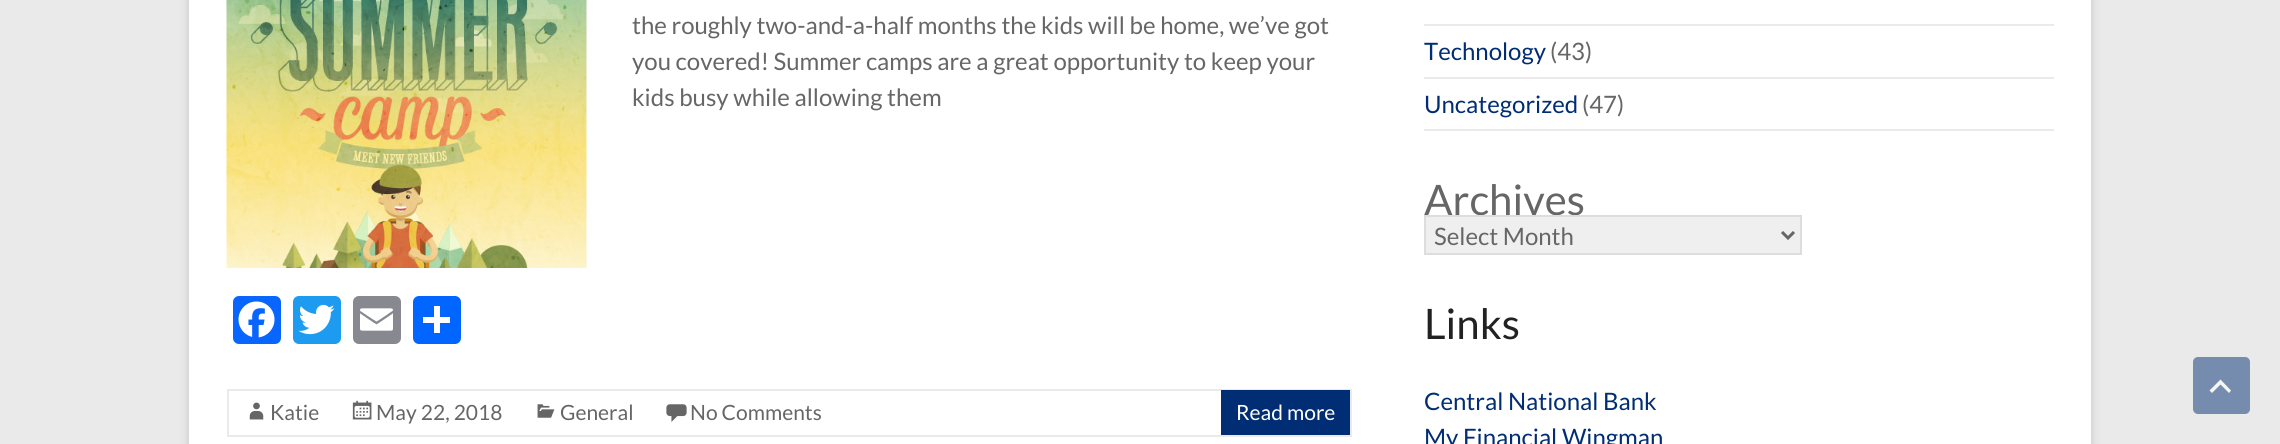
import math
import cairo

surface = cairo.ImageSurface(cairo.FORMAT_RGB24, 2280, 444)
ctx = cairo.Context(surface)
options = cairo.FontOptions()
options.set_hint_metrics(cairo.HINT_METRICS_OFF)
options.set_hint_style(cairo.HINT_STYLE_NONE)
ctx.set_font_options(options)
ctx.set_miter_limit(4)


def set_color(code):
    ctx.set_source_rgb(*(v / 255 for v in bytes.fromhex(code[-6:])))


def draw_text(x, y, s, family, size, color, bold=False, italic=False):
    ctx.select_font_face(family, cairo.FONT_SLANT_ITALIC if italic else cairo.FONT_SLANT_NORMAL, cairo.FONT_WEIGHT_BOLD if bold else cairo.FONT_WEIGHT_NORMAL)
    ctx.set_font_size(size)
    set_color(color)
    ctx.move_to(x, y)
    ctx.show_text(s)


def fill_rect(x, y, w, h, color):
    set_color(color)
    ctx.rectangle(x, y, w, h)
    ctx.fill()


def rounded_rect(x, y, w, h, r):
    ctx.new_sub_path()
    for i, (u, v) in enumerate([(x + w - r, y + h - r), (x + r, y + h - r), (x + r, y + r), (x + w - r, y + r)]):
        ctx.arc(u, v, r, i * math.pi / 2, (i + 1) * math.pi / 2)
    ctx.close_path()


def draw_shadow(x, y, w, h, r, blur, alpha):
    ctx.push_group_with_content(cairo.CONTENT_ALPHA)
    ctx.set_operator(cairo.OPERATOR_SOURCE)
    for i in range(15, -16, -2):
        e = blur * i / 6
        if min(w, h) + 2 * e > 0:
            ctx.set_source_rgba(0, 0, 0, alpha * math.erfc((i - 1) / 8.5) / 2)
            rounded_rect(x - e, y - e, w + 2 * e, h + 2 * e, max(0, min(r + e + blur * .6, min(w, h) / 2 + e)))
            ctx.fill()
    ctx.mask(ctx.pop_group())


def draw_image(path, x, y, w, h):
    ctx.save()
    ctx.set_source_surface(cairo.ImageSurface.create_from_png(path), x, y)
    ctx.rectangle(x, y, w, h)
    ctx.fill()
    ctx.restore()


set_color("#eaeaea")
ctx.paint()
set_color("#646464")
draw_shadow(189, -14, 1902, 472, 0, 4.5, 0.3)
fill_rect(189, 0, 1902, 444, "#ffffff")
draw_image("assets/img1.png", 226, 0, 361, 268)
draw_text(632, 34, "the roughly two-and-a-half months the kids will be home, we’ve got", "Lato", 24, "#666666")
draw_text(632, 70, "you covered! Summer camps are a great opportunity to keep your", "Lato", 24, "#666666")
draw_text(632, 106, "kids busy while allowing them", "Lato", 24, "#666666")
set_color("#0866ff")
rounded_rect(233, 296, 48, 48, 6)
ctx.fill()
draw_image("assets/img2.png", 238, 301, 37, 37)
set_color("#1d9bf0")
rounded_rect(293, 296, 48, 48, 6)
ctx.fill()
draw_image("assets/img3.png", 298, 304, 37, 31)
set_color("#888990")
rounded_rect(353, 296, 48, 48, 6)
ctx.fill()
draw_image("assets/img4.png", 360, 308, 33, 23)
set_color("#0166ff")
rounded_rect(413, 296, 48, 48, 6)
ctx.fill()
fill_rect(434, 306, 6, 27, "#ffffff")
fill_rect(423, 317, 27, 6, "#ffffff")
ctx.rectangle(228, 390, 1123, 46)
set_color("#eaeaea")
ctx.stroke()
draw_image("assets/img5.png", 249, 402, 15, 18)
draw_text(270, 420, "Katie", "Lato", 21, "#666666")
draw_image("assets/img6.png", 352, 400, 20, 20)
draw_text(376, 420, "May 22, 2018", "Lato", 21, "#666666")
draw_image("assets/img7.png", 537, 404, 18, 14)
draw_text(560, 420, "General", "Lato", 21, "#666666")
draw_image("assets/img8.png", 666, 404, 21, 18)
draw_text(690, 420, "No Comments", "Lato", 21, "#666666")
fill_rect(1221, 390, 129, 45, "#002d73")
draw_text(1236, 420, "Read more", "Lato", 21, "#ffffff")
fill_rect(1424, 24, 630, 2, "#eaeaea")
fill_rect(1424, 77, 630, 2, "#eaeaea")
draw_text(1424, 60, "Technology", "Lato", 24, "#002d73")
draw_text(1550, 60, "(43)", "Lato", 24, "#666666")
fill_rect(1424, 129, 630, 2, "#eaeaea")
draw_text(1424, 113, "Uncategorized", "Lato", 24, "#002d73")
draw_text(1582, 113, "(47)", "Lato", 24, "#666666")
draw_text(1424, 215, "Archives", "Lato", 42, "#666666")
set_color("#efefef")
ctx.rectangle(1425, 216, 376, 38)
ctx.fill_preserve()
set_color("#dddddd")
ctx.stroke()
ctx.new_path()
ctx.move_to(1782, 232)
ctx.line_to(1788, 238)
ctx.line_to(1794, 232)
set_color("#666666")
ctx.set_line_width(3)
ctx.stroke()
draw_text(1434, 245, "Select Month", "Lato", 24, "#666666")
draw_text(1424, 339, "Links", "Lato", 42, "#222222")
draw_text(1424, 410, "Central National Bank", "Lato", 24, "#002d73")
draw_text(1424, 446, "My Financial Wingman", "Lato", 24, "#002d73")
set_color("#758caf")
rounded_rect(2193, 357, 57, 57, 5)
ctx.fill()
set_color("#f5f5f5")
ctx.new_path()
ctx.move_to(2229, 393)
ctx.line_to(2220.5, 384.5)
ctx.line_to(2212, 393)
ctx.line_to(2209.5, 390.5)
ctx.line_to(2220.5, 379.5)
ctx.line_to(2231, 390.5)
ctx.close_path()
ctx.fill()
surface.write_to_png("output.png")
